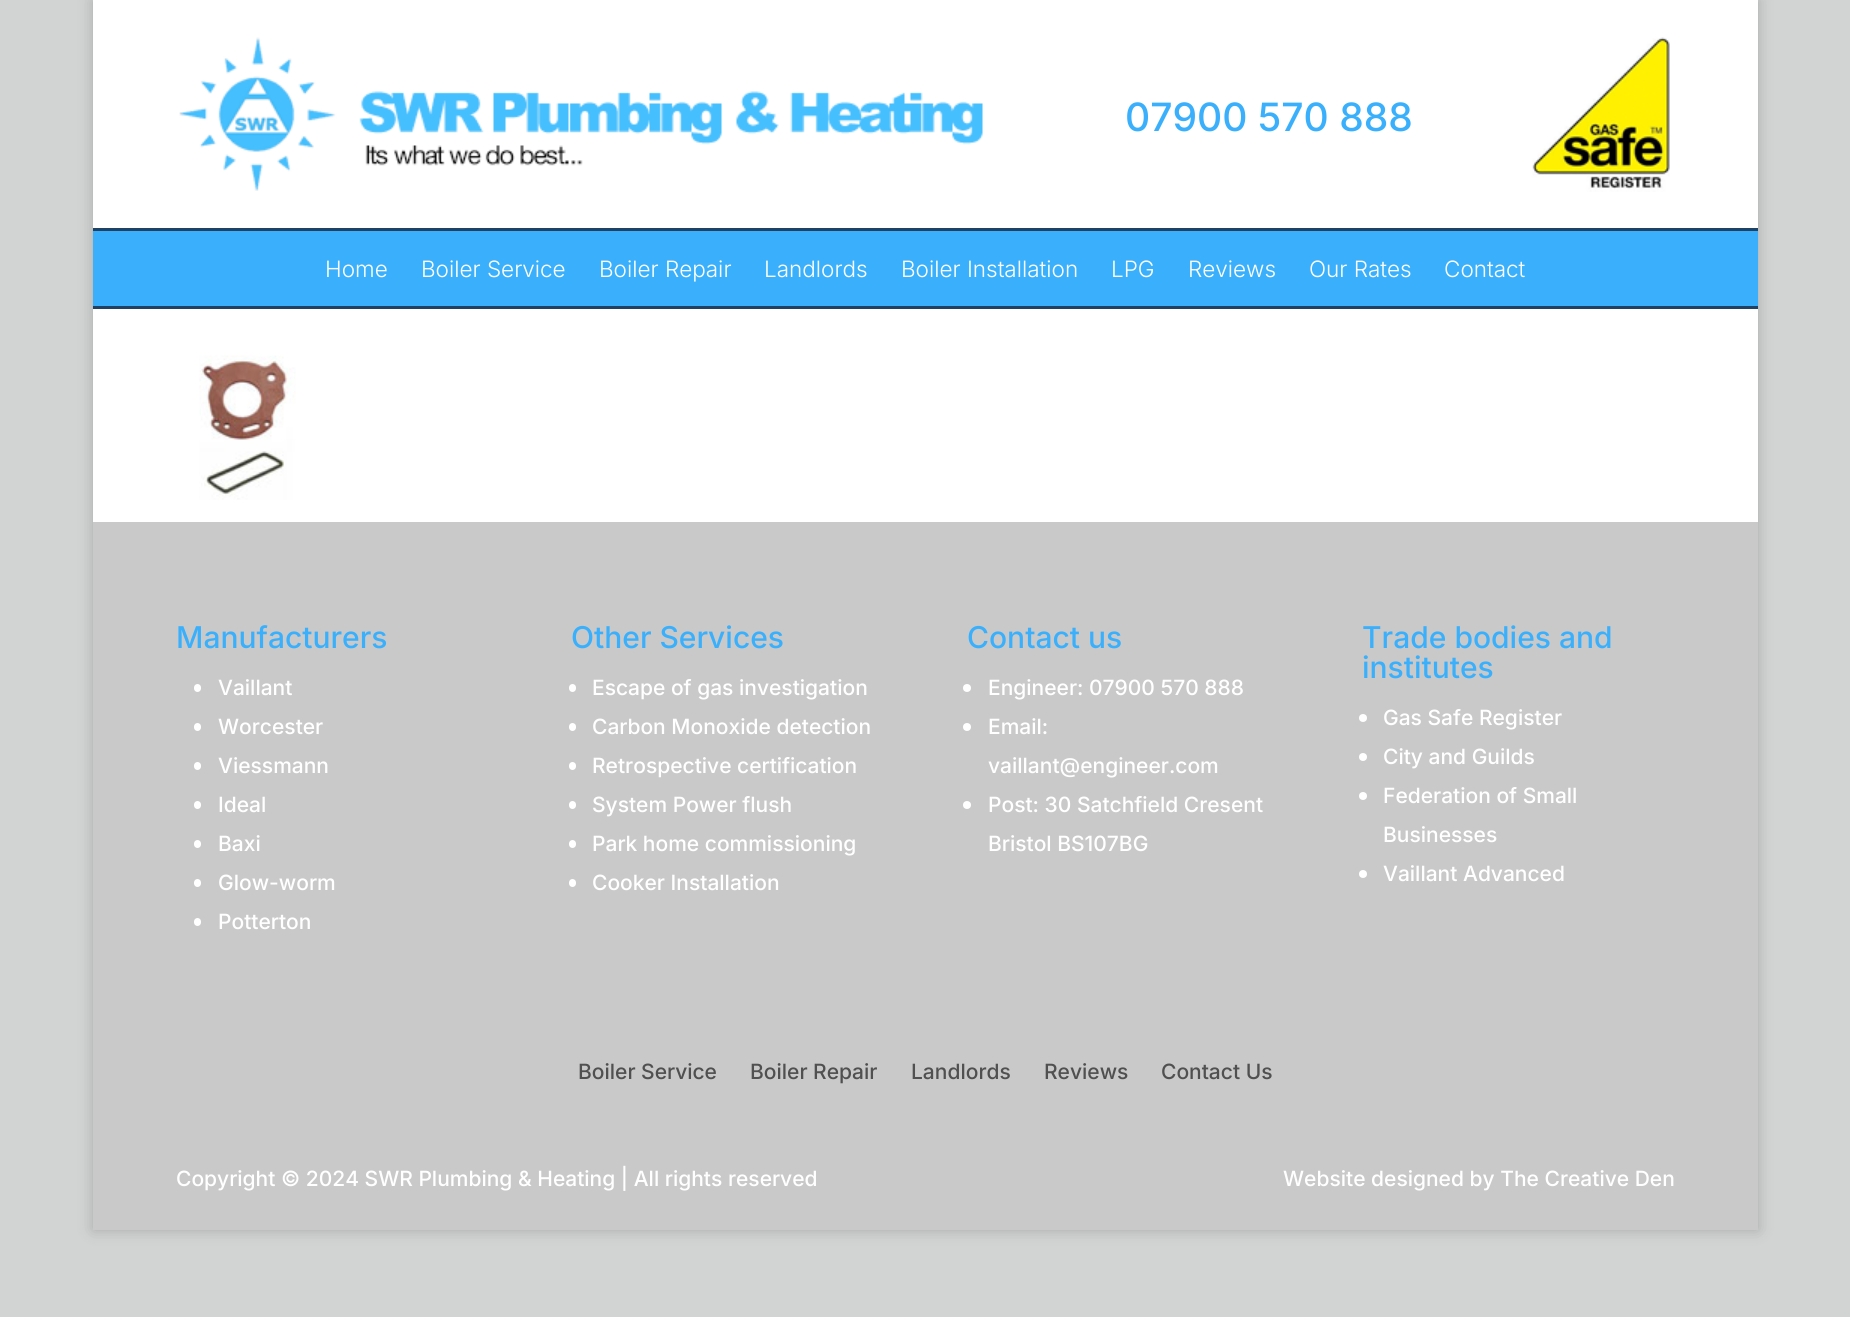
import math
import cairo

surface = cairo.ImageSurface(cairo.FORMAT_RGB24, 1850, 1317)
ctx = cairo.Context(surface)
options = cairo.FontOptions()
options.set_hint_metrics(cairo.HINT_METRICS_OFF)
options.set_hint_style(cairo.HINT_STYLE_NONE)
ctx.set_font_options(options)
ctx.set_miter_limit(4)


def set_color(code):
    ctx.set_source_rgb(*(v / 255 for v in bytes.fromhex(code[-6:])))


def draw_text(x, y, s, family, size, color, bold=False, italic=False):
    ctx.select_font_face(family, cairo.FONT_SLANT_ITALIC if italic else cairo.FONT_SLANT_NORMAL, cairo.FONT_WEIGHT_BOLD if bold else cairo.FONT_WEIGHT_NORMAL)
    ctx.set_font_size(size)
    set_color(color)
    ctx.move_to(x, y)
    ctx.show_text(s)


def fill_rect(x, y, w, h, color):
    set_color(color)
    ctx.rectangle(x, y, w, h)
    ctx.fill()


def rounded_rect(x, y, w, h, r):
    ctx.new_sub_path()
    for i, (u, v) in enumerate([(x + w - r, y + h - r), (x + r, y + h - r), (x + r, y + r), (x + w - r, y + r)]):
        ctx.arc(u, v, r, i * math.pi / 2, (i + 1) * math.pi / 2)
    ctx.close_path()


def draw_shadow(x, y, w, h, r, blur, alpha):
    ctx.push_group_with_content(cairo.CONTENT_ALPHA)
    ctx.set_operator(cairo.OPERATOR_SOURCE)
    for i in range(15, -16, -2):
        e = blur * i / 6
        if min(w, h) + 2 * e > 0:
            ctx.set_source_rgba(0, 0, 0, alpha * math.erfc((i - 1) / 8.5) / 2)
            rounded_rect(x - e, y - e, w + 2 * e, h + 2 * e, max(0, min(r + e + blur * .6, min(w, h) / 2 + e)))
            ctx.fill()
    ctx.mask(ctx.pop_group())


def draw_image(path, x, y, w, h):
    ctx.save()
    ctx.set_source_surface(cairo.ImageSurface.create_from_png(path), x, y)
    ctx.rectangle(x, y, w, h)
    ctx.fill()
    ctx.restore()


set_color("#d2d3d3")
ctx.paint()
set_color("#000000")
draw_shadow(93, 0, 1665, 1230, 0, 7.5, 0.2)
fill_rect(93, 0, 1665, 228, "#ffffff")
draw_image("assets/img1.png", 179, 37, 804, 154)
draw_text(1125, 131, "07900 570 888", "Inter Medium", 39, "#3ab0fc")
draw_image("assets/img2.png", 1532, 37, 138, 155)
fill_rect(93, 231, 1665, 75, "#3ab0fc")
fill_rect(93, 228, 1665, 3, "#1f4163")
fill_rect(93, 306, 1665, 3, "#1f4163")
draw_text(325, 277, "Home", "Inter Light", 22.5, "#ffffff")
draw_text(421, 277, "Boiler Service", "Inter Light", 22.5, "#ffffff")
draw_text(599, 277, "Boiler Repair", "Inter Light", 22.5, "#ffffff")
draw_text(764, 277, "Landlords", "Inter Light", 22.5, "#ffffff")
draw_text(901, 277, "Boiler Installation", "Inter Light", 22.5, "#ffffff")
draw_text(1111, 277, "LPG", "Inter Light", 22.5, "#ffffff")
draw_text(1188, 277, "Reviews", "Inter Light", 22.5, "#ffffff")
draw_text(1309, 277, "Our Rates", "Inter Light", 22.5, "#ffffff")
draw_text(1444, 277, "Contact", "Inter Light", 22.5, "#ffffff")
fill_rect(93, 309, 1665, 213, "#ffffff")
draw_image("assets/img3.png", 175, 344, 140, 156)
fill_rect(93, 522, 1665, 708, "#c9c9c9")
draw_text(176, 648, "Manufacturers", "Inter Medium", 30, "#3ab0fc")
set_color("#ffffff")
rounded_rect(194, 684, 7, 8, 3.5)
ctx.fill()
draw_text(218, 695, "Vaillant", "Inter Medium", 21, "#ffffff")
rounded_rect(194, 723, 7, 8, 3.5)
ctx.fill()
draw_text(218, 734, "Worcester", "Inter Medium", 21, "#ffffff")
rounded_rect(194, 762, 7, 8, 3.5)
ctx.fill()
draw_text(218, 773, "Viessmann", "Inter Medium", 21, "#ffffff")
rounded_rect(194, 801, 7, 8, 3.5)
ctx.fill()
draw_text(218, 812, "Ideal", "Inter Medium", 21, "#ffffff")
rounded_rect(194, 840, 7, 8, 3.5)
ctx.fill()
draw_text(218, 851, "Baxi", "Inter Medium", 21, "#ffffff")
rounded_rect(194, 879, 7, 8, 3.5)
ctx.fill()
draw_text(218, 890, "Glow-worm", "Inter Medium", 21, "#ffffff")
rounded_rect(194, 918, 7, 8, 3.5)
ctx.fill()
draw_text(218, 929, "Potterton", "Inter Medium", 21, "#ffffff")
draw_text(571, 648, "Other Services", "Inter Medium", 30, "#3ab0fc")
set_color("#ffffff")
rounded_rect(569, 684, 7, 8, 3.5)
ctx.fill()
draw_text(592, 695, "Escape of gas investigation", "Inter Medium", 21, "#ffffff")
rounded_rect(569, 723, 7, 8, 3.5)
ctx.fill()
draw_text(592, 734, "Carbon Monoxide detection", "Inter Medium", 21, "#ffffff")
rounded_rect(569, 762, 7, 8, 3.5)
ctx.fill()
draw_text(592, 773, "Retrospective certification", "Inter Medium", 21, "#ffffff")
rounded_rect(569, 801, 7, 8, 3.5)
ctx.fill()
draw_text(592, 812, "System Power flush", "Inter Medium", 21, "#ffffff")
rounded_rect(569, 840, 7, 8, 3.5)
ctx.fill()
draw_text(592, 851, "Park home commissioning", "Inter Medium", 21, "#ffffff")
rounded_rect(569, 879, 7, 8, 3.5)
ctx.fill()
draw_text(592, 890, "Cooker Installation", "Inter Medium", 21, "#ffffff")
draw_text(967, 648, "Contact us", "Inter Medium", 30, "#3ab0fc")
set_color("#ffffff")
ctx.new_path()
ctx.arc(967, 688, 4, 0, 2 * math.pi)
ctx.fill()
draw_text(988, 695, "Engineer: 07900 570 888", "Inter Medium", 21, "#ffffff")
ctx.new_path()
ctx.arc(967, 727, 4, 0, 2 * math.pi)
ctx.fill()
draw_text(988, 734, "Email:", "Inter Medium", 21, "#ffffff")
draw_text(988, 773, "vaillant@engineer.com", "Inter Medium", 21, "#ffffff")
ctx.new_path()
ctx.arc(967, 805, 4, 0, 2 * math.pi)
ctx.fill()
draw_text(988, 812, "Post: 30 Satchfield Cresent", "Inter Medium", 21, "#ffffff")
draw_text(988, 851, "Bristol BS107BG", "Inter Medium", 21, "#ffffff")
draw_text(1362, 648, "Trade bodies and", "Inter Medium", 30, "#3ab0fc")
draw_text(1362, 678, "institutes", "Inter Medium", 30, "#3ab0fc")
set_color("#ffffff")
ctx.new_path()
ctx.arc(1363, 718, 4, 0, 2 * math.pi)
ctx.fill()
draw_text(1383, 725, "Gas Safe Register", "Inter Medium", 21, "#ffffff")
ctx.new_path()
ctx.arc(1363, 757, 4, 0, 2 * math.pi)
ctx.fill()
draw_text(1383, 764, "City and Guilds", "Inter Medium", 21, "#ffffff")
ctx.new_path()
ctx.arc(1363, 796, 4, 0, 2 * math.pi)
ctx.fill()
draw_text(1383, 803, "Federation of Small", "Inter Medium", 21, "#ffffff")
draw_text(1383, 842, "Businesses", "Inter Medium", 21, "#ffffff")
ctx.new_path()
ctx.arc(1363, 874, 4, 0, 2 * math.pi)
ctx.fill()
draw_text(1383, 881, "Vaillant Advanced", "Inter Medium", 21, "#ffffff")
draw_text(578, 1079, "Boiler Service", "Inter Medium", 21, "#505050")
draw_text(750, 1079, "Boiler Repair", "Inter Medium", 21, "#505050")
draw_text(911, 1079, "Landlords", "Inter Medium", 21, "#505050")
draw_text(1044, 1079, "Reviews", "Inter Medium", 21, "#505050")
draw_text(1161, 1079, "Contact Us", "Inter Medium", 21, "#505050")
draw_text(176, 1186, "Copyright © 2024 SWR Plumbing & Heating | All rights reserved", "Inter Medium", 21, "#ffffff")
draw_text(1283, 1186, "Website designed by The Creative Den", "Inter Medium", 21, "#ffffff")
surface.write_to_png("output.png")
